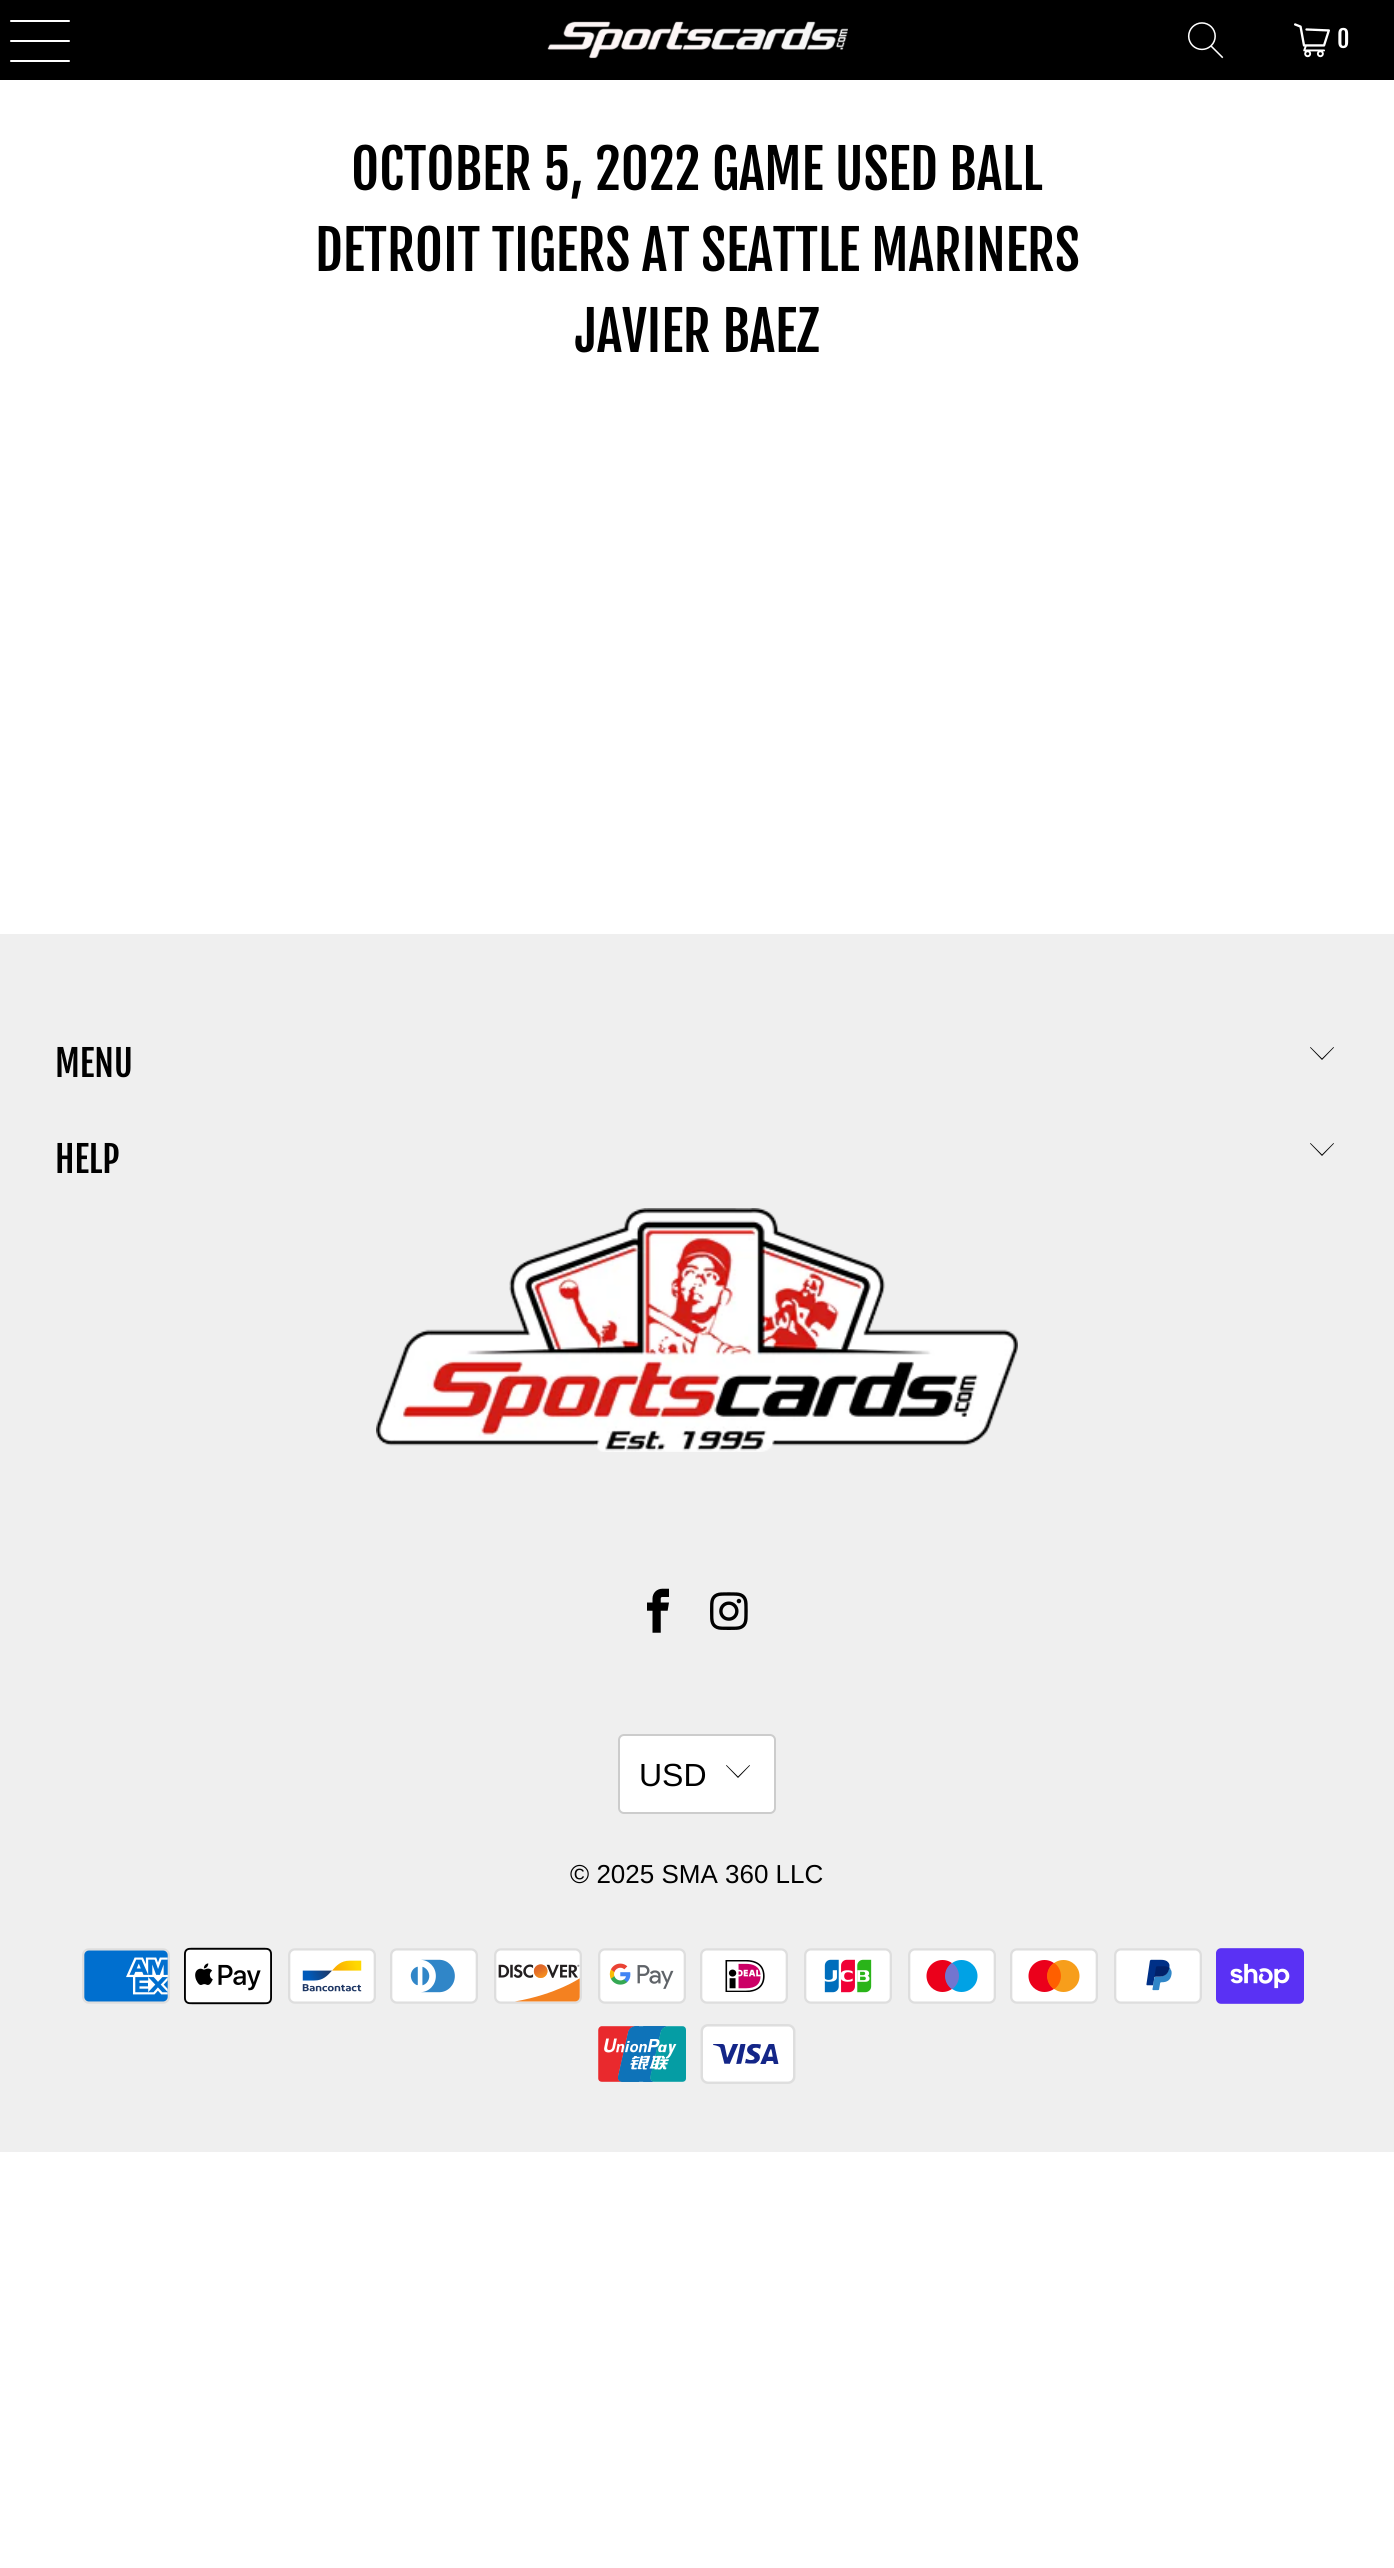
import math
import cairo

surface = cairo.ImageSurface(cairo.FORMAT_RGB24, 1394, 2568)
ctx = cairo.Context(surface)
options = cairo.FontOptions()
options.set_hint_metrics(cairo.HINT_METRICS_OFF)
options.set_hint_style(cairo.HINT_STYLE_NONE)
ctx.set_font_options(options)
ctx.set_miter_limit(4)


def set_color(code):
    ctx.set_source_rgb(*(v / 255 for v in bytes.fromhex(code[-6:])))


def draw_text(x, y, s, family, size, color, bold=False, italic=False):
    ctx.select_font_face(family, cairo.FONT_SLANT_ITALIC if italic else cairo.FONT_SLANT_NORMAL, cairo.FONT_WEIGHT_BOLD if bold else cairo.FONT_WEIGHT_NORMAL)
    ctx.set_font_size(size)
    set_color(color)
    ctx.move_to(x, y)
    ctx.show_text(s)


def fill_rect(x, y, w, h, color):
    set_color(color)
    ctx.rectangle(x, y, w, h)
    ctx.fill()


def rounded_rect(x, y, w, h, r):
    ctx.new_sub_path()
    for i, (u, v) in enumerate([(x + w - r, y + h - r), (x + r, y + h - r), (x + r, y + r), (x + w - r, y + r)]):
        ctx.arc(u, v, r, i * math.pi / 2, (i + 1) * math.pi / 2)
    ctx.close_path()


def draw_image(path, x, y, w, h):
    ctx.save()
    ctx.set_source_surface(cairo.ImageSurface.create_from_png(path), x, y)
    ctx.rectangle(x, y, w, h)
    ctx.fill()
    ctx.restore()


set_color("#ffffff")
ctx.paint()
fill_rect(0, 0, 1394, 80, "#000000")
set_color("#ffffff")
rounded_rect(10, 20, 60, 2, 1)
ctx.fill()
rounded_rect(10, 40, 60, 2, 1)
ctx.fill()
rounded_rect(10, 60, 60, 2, 1)
ctx.fill()
draw_image("assets/img1.png", 547, 21, 301, 38)
draw_image("assets/img2.png", 1187, 22, 37, 37)
draw_image("assets/img3.png", 1294, 23, 36, 35)
draw_text(1337, 48, "0", "Fjalla One", 24, "#ffffff")
draw_text(351, 190, "OCTOBER 5, 2022 GAME USED BALL", "Fjalla One", 54, "#000000")
draw_text(315, 271, "DETROIT TIGERS AT SEATTLE MARINERS", "Fjalla One", 54, "#000000")
draw_text(575, 352, "JAVIER BAEZ", "Fjalla One", 54, "#000000")
fill_rect(0, 934, 1394, 1218, "#efefef")
draw_text(55, 1077, "MENU", "Fjalla One", 36, "#000000")
ctx.new_path()
ctx.move_to(1322, 1060)
ctx.line_to(1310, 1047.5)
ctx.line_to(1310.5, 1047)
ctx.line_to(1322, 1058.5)
ctx.line_to(1333.5, 1047)
ctx.line_to(1334, 1047.5)
ctx.close_path()
ctx.fill()
draw_text(55, 1173, "HELP", "Fjalla One", 36, "#000000")
ctx.new_path()
ctx.move_to(1322, 1156)
ctx.line_to(1310, 1143.5)
ctx.line_to(1310.5, 1143)
ctx.line_to(1322, 1154.5)
ctx.line_to(1333.5, 1143)
ctx.line_to(1334, 1143.5)
ctx.close_path()
ctx.fill()
draw_image("assets/img4.png", 376, 1208, 642, 244)
draw_image("assets/img5.png", 647, 1588, 22, 45)
draw_image("assets/img6.png", 710, 1592, 38, 38)
set_color("#ffffff")
rounded_rect(619, 1735, 156, 78, 5)
ctx.fill_preserve()
set_color("#cccccc")
ctx.stroke()
draw_text(639, 1786, "USD", "Liberation Sans", 32, "#000000")
ctx.new_path()
ctx.move_to(738, 1778)
ctx.line_to(726, 1765.5)
ctx.line_to(726.5, 1765)
ctx.line_to(738, 1776.5)
ctx.line_to(749.5, 1765)
ctx.line_to(750, 1765.5)
ctx.close_path()
ctx.fill()
draw_text(570, 1883, "© 2025 SMA 360 LLC", "Liberation Sans", 26, "#000000")
draw_image("assets/img7.png", 82, 1948, 88, 56)
draw_image("assets/img8.png", 184, 1947, 88, 58)
draw_image("assets/img9.png", 288, 1948, 88, 56)
draw_image("assets/img10.png", 390, 1948, 88, 56)
draw_image("assets/img11.png", 494, 1948, 88, 56)
draw_image("assets/img12.png", 598, 1948, 88, 56)
draw_image("assets/img13.png", 700, 1948, 88, 56)
draw_image("assets/img14.png", 804, 1948, 88, 56)
draw_image("assets/img15.png", 908, 1948, 88, 56)
draw_image("assets/img16.png", 1010, 1948, 88, 56)
draw_image("assets/img17.png", 1114, 1948, 88, 56)
draw_image("assets/img18.png", 1216, 1948, 88, 56)
draw_image("assets/img19.png", 598, 2026, 88, 56)
draw_image("assets/img20.png", 700, 2024, 96, 60)
surface.write_to_png("output.png")
